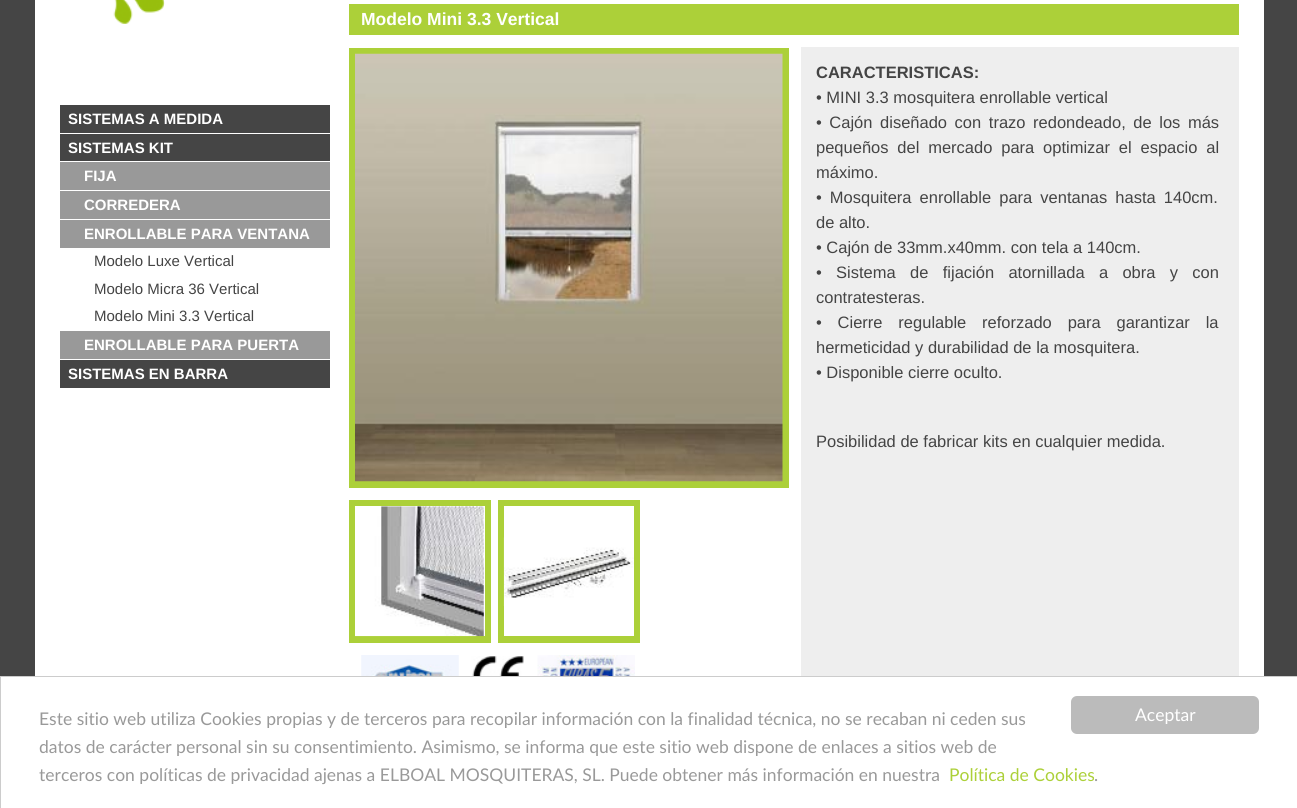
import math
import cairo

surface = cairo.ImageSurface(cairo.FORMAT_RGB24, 1297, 808)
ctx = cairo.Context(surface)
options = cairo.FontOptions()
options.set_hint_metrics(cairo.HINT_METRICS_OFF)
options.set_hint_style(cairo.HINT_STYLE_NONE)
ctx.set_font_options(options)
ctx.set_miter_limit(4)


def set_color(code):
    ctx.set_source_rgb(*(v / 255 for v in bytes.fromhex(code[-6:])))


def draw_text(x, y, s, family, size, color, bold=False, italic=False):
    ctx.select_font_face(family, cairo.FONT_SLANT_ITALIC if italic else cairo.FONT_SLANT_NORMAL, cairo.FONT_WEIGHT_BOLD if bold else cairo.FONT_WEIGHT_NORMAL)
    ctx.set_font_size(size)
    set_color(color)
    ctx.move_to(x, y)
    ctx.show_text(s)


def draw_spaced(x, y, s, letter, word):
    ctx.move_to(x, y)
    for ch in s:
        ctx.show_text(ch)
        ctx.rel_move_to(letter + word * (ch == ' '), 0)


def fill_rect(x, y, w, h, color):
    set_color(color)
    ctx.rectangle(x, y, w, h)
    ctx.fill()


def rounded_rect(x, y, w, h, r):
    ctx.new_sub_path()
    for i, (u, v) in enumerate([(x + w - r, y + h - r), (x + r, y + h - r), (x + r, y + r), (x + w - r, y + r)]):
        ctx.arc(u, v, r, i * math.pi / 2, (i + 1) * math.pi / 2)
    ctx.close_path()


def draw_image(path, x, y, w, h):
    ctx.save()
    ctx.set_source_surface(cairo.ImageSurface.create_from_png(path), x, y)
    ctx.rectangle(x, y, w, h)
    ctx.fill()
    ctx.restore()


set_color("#454545")
ctx.paint()
fill_rect(35, 0, 1229, 676, "#ffffff")
draw_image("assets/img1.png", 113, 0, 52, 24)
fill_rect(60, 105, 270, 28, "#454545")
draw_text(68, 124, "SISTEMAS A MEDIDA", "Liberation Sans", 15, "#ffffff", bold=True)
fill_rect(60, 134, 270, 27, "#454545")
draw_text(68, 153, "SISTEMAS KIT", "Liberation Sans", 15, "#ffffff", bold=True)
fill_rect(60, 162, 270, 28, "#999999")
draw_text(84, 181, "FIJA", "Liberation Sans", 15, "#ffffff", bold=True)
fill_rect(60, 191, 270, 28, "#999999")
draw_text(84, 210, "CORREDERA", "Liberation Sans", 15, "#ffffff", bold=True)
fill_rect(60, 220, 270, 28, "#999999")
draw_text(84, 239, "ENROLLABLE PARA VENTANA", "Liberation Sans", 15, "#ffffff", bold=True)
draw_text(94, 266, "Modelo Luxe Vertical", "Liberation Sans", 15, "#444444")
draw_text(94, 294, "Modelo Micra 36 Vertical", "Liberation Sans", 15, "#444444")
draw_text(94, 321, "Modelo Mini 3.3 Vertical", "Liberation Sans", 15, "#444444")
fill_rect(60, 331, 270, 28, "#999999")
draw_text(84, 350, "ENROLLABLE PARA PUERTA", "Liberation Sans", 15, "#ffffff", bold=True)
fill_rect(60, 360, 270, 28, "#454545")
draw_text(68, 379, "SISTEMAS EN BARRA", "Liberation Sans", 15, "#ffffff", bold=True)
fill_rect(349, 4, 890, 31, "#acd039")
draw_text(361, 25, "Modelo Mini 3.3 Vertical", "Liberation Sans", 17.5, "#ffffff", bold=True)
fill_rect(801, 47, 438, 629, "#eeeeee")
fill_rect(349, 48, 440, 440, "#acd039")
draw_image("assets/img2.png", 355, 53, 428, 429)
fill_rect(349, 500, 142, 143, "#acd039")
fill_rect(355, 506, 130, 130, "#ffffff")
draw_image("assets/img3.png", 355, 506, 129, 131)
fill_rect(498, 500, 142, 143, "#acd039")
fill_rect(504, 506, 130, 130, "#ffffff")
draw_image("assets/img4.png", 503, 537, 131, 69)
draw_image("assets/img5.png", 361, 655, 98, 21)
draw_image("assets/img6.png", 471, 656, 53, 20)
draw_image("assets/img7.png", 537, 655, 98, 21)
draw_text(816, 78, "CARACTERISTICAS:", "Liberation Sans", 16.5, "#444444", bold=True)
draw_text(816, 103, "• MINI 3.3 mosquitera enrollable vertical", "Liberation Sans", 16.5, "#444444")
draw_spaced(816, 128, "• Cajón diseñado con trazo redondeado, de los más", 0, 3)
draw_spaced(816, 153, "pequeños del mercado para optimizar el espacio al", 0, 4.25)
draw_text(816, 178, "máximo.", "Liberation Sans", 16.5, "#444444")
draw_spaced(816, 203, "• Mosquitera enrollable para ventanas hasta 140cm.", 0, 3.5)
draw_text(816, 228, "de alto.", "Liberation Sans", 16.5, "#444444")
draw_text(816, 253, "• Cajón de 33mm.x40mm. con tela a 140cm.", "Liberation Sans", 16.5, "#444444")
draw_spaced(816, 278, "• Sistema de fijación atornillada a obra y con", 0, 9.75)
draw_text(816, 303, "contratesteras.", "Liberation Sans", 16.5, "#444444")
draw_spaced(816, 328, "• Cierre regulable reforzado para garantizar la", 0, 11.25)
draw_text(816, 353, "hermeticidad y durabilidad de la mosquitera.", "Liberation Sans", 16.5, "#444444")
draw_text(816, 378, "• Disponible cierre oculto.", "Liberation Sans", 16.5, "#444444")
draw_text(816, 447, "Posibilidad de fabricar kits en cualquier medida.", "Liberation Sans", 16.5, "#444444")
set_color("#ffffff")
ctx.rectangle(0.5, 676.5, 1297, 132)
ctx.fill_preserve()
set_color("#cccccc")
ctx.set_line_width(1)
ctx.stroke()
draw_text(39, 725, "Este sitio web utiliza Cookies propias y de terceros para recopilar información con la finalidad técnica, no se recaban ni ceden sus", "Lato", 17.5, "#999999")
draw_text(39, 753, "datos de carácter personal sin su consentimiento. Asimismo, se informa que este sitio web dispone de enlaces a sitios web de", "Lato", 17.5, "#999999")
draw_text(39, 781, "terceros con políticas de privacidad ajenas a ELBOAL MOSQUITERAS, SL. Puede obtener más información en nuestra", "Lato", 17.5, "#999999")
draw_text(949, 781, "Política de Cookies", "Lato", 17.5, "#acd039")
draw_text(1094, 781, ".", "Lato", 17.5, "#999999")
set_color("#bbbbbb")
rounded_rect(1071, 696, 188, 38, 6)
ctx.fill()
draw_text(1135, 721, "Aceptar", "Lato", 17.5, "#ffffff")
surface.write_to_png("output.png")
